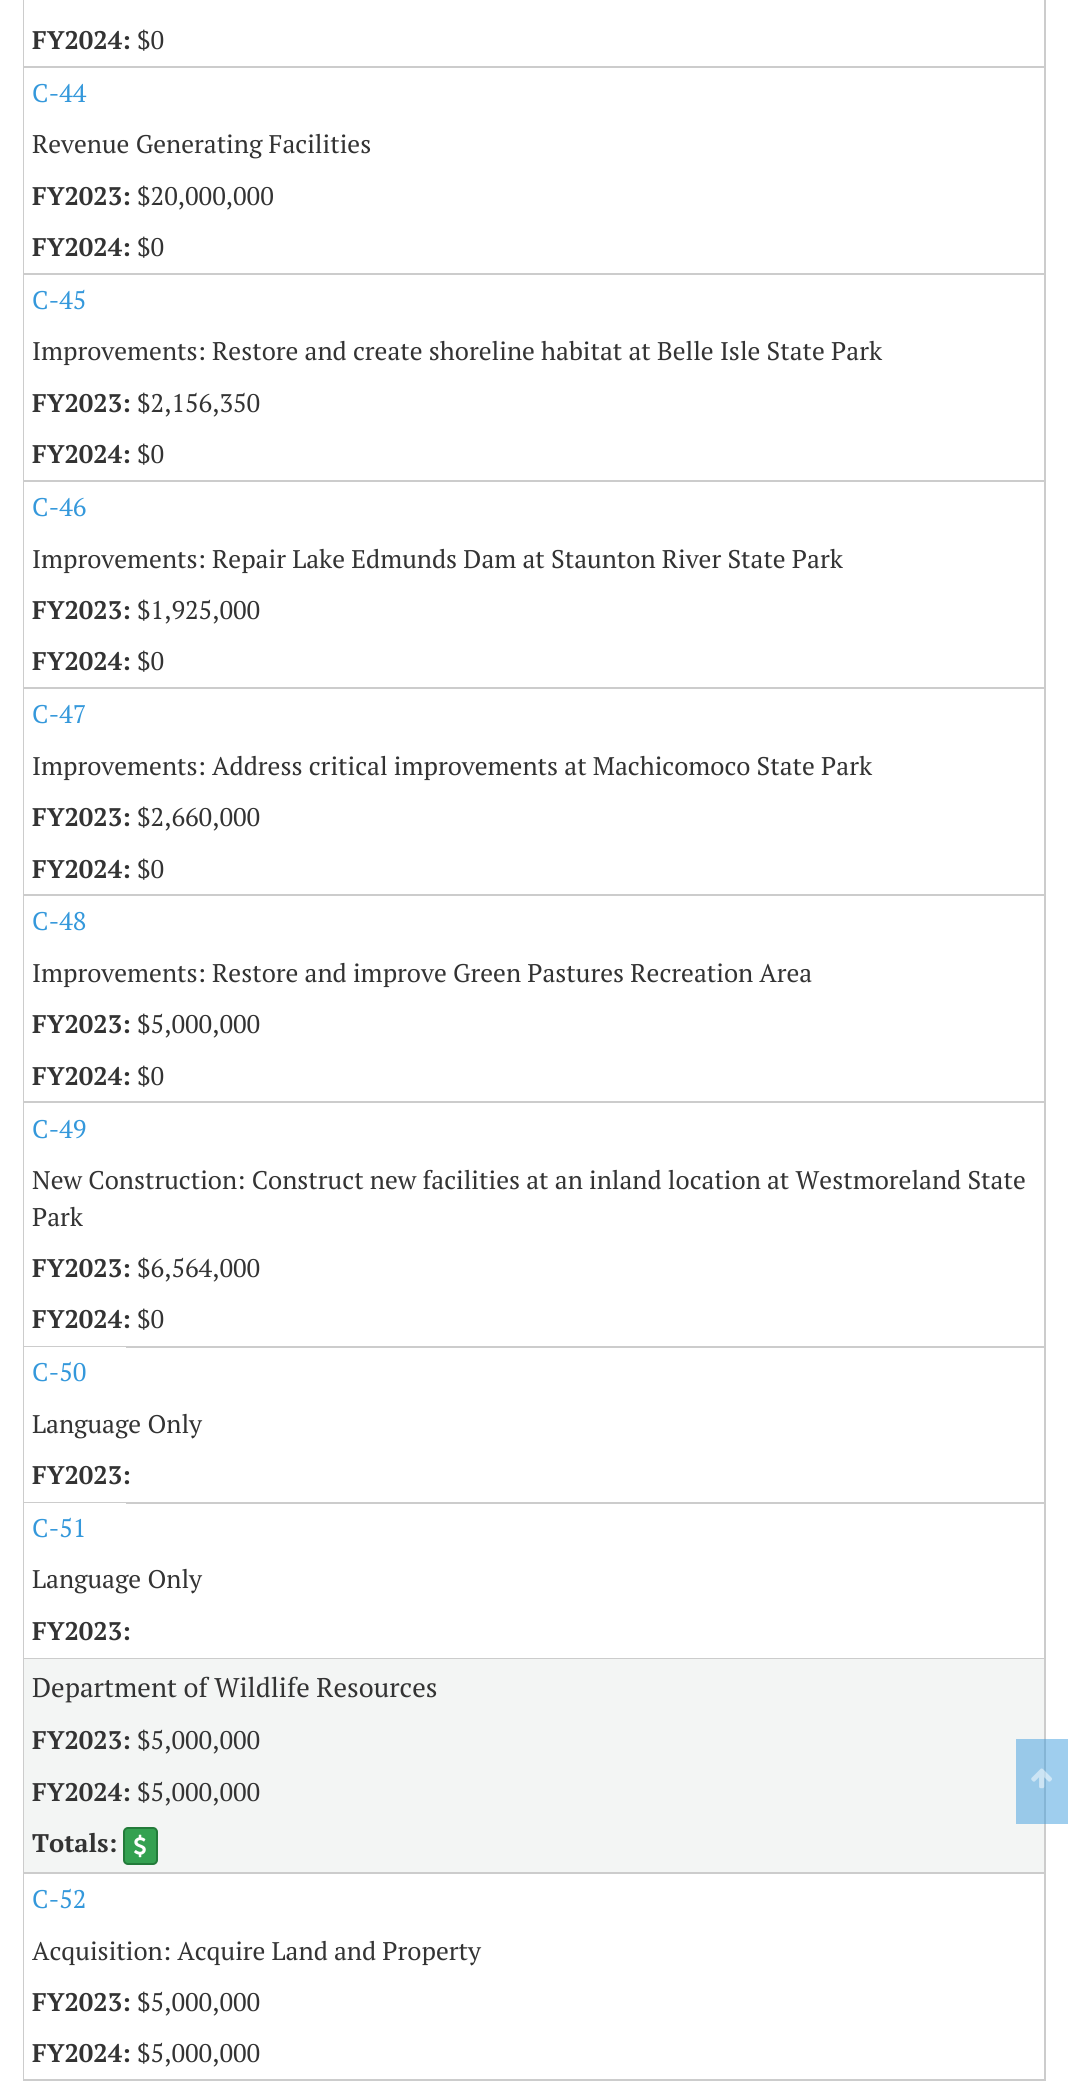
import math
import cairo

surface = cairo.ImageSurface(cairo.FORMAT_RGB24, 1068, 2086)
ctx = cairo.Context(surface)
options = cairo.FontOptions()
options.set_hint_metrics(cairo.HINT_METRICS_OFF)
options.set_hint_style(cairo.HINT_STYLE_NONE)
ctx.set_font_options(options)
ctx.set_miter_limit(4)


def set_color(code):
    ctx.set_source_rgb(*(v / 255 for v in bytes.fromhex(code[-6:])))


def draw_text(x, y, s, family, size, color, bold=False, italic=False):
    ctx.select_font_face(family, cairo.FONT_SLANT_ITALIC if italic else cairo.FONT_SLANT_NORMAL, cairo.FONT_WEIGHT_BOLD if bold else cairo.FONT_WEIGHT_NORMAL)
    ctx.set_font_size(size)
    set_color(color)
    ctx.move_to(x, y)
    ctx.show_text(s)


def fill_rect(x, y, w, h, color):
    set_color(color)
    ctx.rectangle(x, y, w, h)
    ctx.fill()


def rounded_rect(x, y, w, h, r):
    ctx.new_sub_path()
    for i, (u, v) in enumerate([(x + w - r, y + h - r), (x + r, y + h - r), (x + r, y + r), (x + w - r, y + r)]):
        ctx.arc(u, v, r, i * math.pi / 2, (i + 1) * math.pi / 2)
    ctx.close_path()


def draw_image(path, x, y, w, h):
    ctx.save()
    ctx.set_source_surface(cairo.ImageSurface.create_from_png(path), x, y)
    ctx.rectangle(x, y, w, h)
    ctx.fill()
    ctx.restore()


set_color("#ffffff")
ctx.paint()
fill_rect(1046, 1739, 22, 85, "#9fceee")
fill_rect(1044, 0, 2, 2081, "#cccccc")
fill_rect(1044, 1739, 2, 85, "#85b5d5")
fill_rect(23, 0, 1, 2081, "#cccccc")
fill_rect(24, 66, 1020, 2, "#cccccc")
draw_text(32, 49, "FY2024:", "PT Serif", 25.5, "#333333", bold=True)
draw_text(137, 49, "$0", "PT Serif", 25.5, "#333333")
fill_rect(24, 273, 1020, 2, "#cccccc")
draw_text(32, 102, "C-44", "PT Serif", 25.5, "#3498db")
draw_text(32, 153, "Revenue Generating Facilities", "PT Serif", 25.5, "#333333")
draw_text(32, 205, "FY2023:", "PT Serif", 25.5, "#333333", bold=True)
draw_text(137, 205, "$20,000,000", "PT Serif", 25.5, "#333333")
draw_text(32, 256, "FY2024:", "PT Serif", 25.5, "#333333", bold=True)
draw_text(137, 256, "$0", "PT Serif", 25.5, "#333333")
fill_rect(24, 480, 1020, 2, "#cccccc")
draw_text(32, 309, "C-45", "PT Serif", 25.5, "#3498db")
draw_text(32, 360, "Improvements: Restore and create shoreline habitat at Belle Isle State Park", "PT Serif", 25.5, "#333333")
draw_text(32, 412, "FY2023:", "PT Serif", 25.5, "#333333", bold=True)
draw_text(137, 412, "$2,156,350", "PT Serif", 25.5, "#333333")
draw_text(32, 463, "FY2024:", "PT Serif", 25.5, "#333333", bold=True)
draw_text(137, 463, "$0", "PT Serif", 25.5, "#333333")
fill_rect(24, 687, 1020, 2, "#cccccc")
draw_text(32, 516, "C-46", "PT Serif", 25.5, "#3498db")
draw_text(32, 568, "Improvements: Repair Lake Edmunds Dam at Staunton River State Park", "PT Serif", 25.5, "#333333")
draw_text(32, 619, "FY2023:", "PT Serif", 25.5, "#333333", bold=True)
draw_text(137, 619, "$1,925,000", "PT Serif", 25.5, "#333333")
draw_text(32, 670, "FY2024:", "PT Serif", 25.5, "#333333", bold=True)
draw_text(137, 670, "$0", "PT Serif", 25.5, "#333333")
fill_rect(24, 894, 1020, 2, "#cccccc")
draw_text(32, 723, "C-47", "PT Serif", 25.5, "#3498db")
draw_text(32, 775, "Improvements: Address critical improvements at Machicomoco State Park", "PT Serif", 25.5, "#333333")
draw_text(32, 826, "FY2023:", "PT Serif", 25.5, "#333333", bold=True)
draw_text(137, 826, "$2,660,000", "PT Serif", 25.5, "#333333")
draw_text(32, 878, "FY2024:", "PT Serif", 25.5, "#333333", bold=True)
draw_text(137, 878, "$0", "PT Serif", 25.5, "#333333")
fill_rect(24, 1101, 1020, 2, "#cccccc")
draw_text(32, 930, "C-48", "PT Serif", 25.5, "#3498db")
draw_text(32, 982, "Improvements: Restore and improve Green Pastures Recreation Area", "PT Serif", 25.5, "#333333")
draw_text(32, 1033, "FY2023:", "PT Serif", 25.5, "#333333", bold=True)
draw_text(137, 1033, "$5,000,000", "PT Serif", 25.5, "#333333")
draw_text(32, 1085, "FY2024:", "PT Serif", 25.5, "#333333", bold=True)
draw_text(137, 1085, "$0", "PT Serif", 25.5, "#333333")
fill_rect(24, 1346, 1020, 2, "#cccccc")
draw_text(32, 1138, "C-49", "PT Serif", 25.5, "#3498db")
draw_text(32, 1189, "New Construction: Construct new facilities at an inland location at Westmoreland State", "PT Serif", 25.5, "#333333")
draw_text(32, 1226, "Park", "PT Serif", 25.5, "#333333")
draw_text(32, 1277, "FY2023:", "PT Serif", 25.5, "#333333", bold=True)
draw_text(137, 1277, "$6,564,000", "PT Serif", 25.5, "#333333")
draw_text(32, 1328, "FY2024:", "PT Serif", 25.5, "#333333", bold=True)
draw_text(137, 1328, "$0", "PT Serif", 25.5, "#333333")
fill_rect(24, 1502, 1020, 2, "#cccccc")
fill_rect(24, 1347, 102, 1, "#ffffff")
draw_text(32, 1381, "C-50", "PT Serif", 25.5, "#3498db")
draw_text(32, 1433, "Language Only", "PT Serif", 25.5, "#333333")
draw_text(32, 1484, "FY2023:", "PT Serif", 25.5, "#333333", bold=True)
fill_rect(24, 1658, 1020, 1, "#cccccc")
fill_rect(24, 1503, 102, 1, "#ffffff")
draw_text(32, 1537, "C-51", "PT Serif", 25.5, "#3498db")
draw_text(32, 1588, "Language Only", "PT Serif", 25.5, "#333333")
draw_text(32, 1640, "FY2023:", "PT Serif", 25.5, "#333333", bold=True)
fill_rect(24, 1872, 1020, 2, "#cccccc")
fill_rect(24, 1659, 1020, 108, "#f3f5f4")
draw_text(32, 1697, "Department of Wildlife Resources", "PT Serif", 27, "#333333")
fill_rect(1016, 1739, 28, 79, "#99c9e9")
draw_text(32, 1749, "FY2023:", "PT Serif", 25.5, "#333333", bold=True)
draw_text(137, 1749, "$5,000,000", "PT Serif", 25.5, "#333333")
fill_rect(24, 1767, 992, 51, "#f3f5f4")
draw_text(32, 1801, "FY2024:", "PT Serif", 25.5, "#333333", bold=True)
draw_text(137, 1801, "$5,000,000", "PT Serif", 25.5, "#333333")
fill_rect(24, 1818, 1020, 54, "#f3f5f4")
fill_rect(1016, 1818, 28, 6, "#99c9e9")
draw_text(32, 1852, "Totals:", "PT Serif", 25.5, "#333333", bold=True)
set_color("#34a151")
rounded_rect(124, 1828, 33, 36, 4)
ctx.fill_preserve()
set_color("#237b3a")
ctx.stroke()
draw_image("assets/img1.png", 134, 1834, 12, 24)
fill_rect(24, 2079, 1020, 2, "#cccccc")
draw_text(32, 1908, "C-52", "PT Serif", 25.5, "#3498db")
draw_text(32, 1960, "Acquisition: Acquire Land and Property", "PT Serif", 25.5, "#333333")
draw_text(32, 2011, "FY2023:", "PT Serif", 25.5, "#333333", bold=True)
draw_text(137, 2011, "$5,000,000", "PT Serif", 25.5, "#333333")
draw_text(32, 2062, "FY2024:", "PT Serif", 25.5, "#333333", bold=True)
draw_text(137, 2062, "$5,000,000", "PT Serif", 25.5, "#333333")
draw_image("assets/img2.png", 1031, 1768, 21, 21)
surface.write_to_png("output.png")
